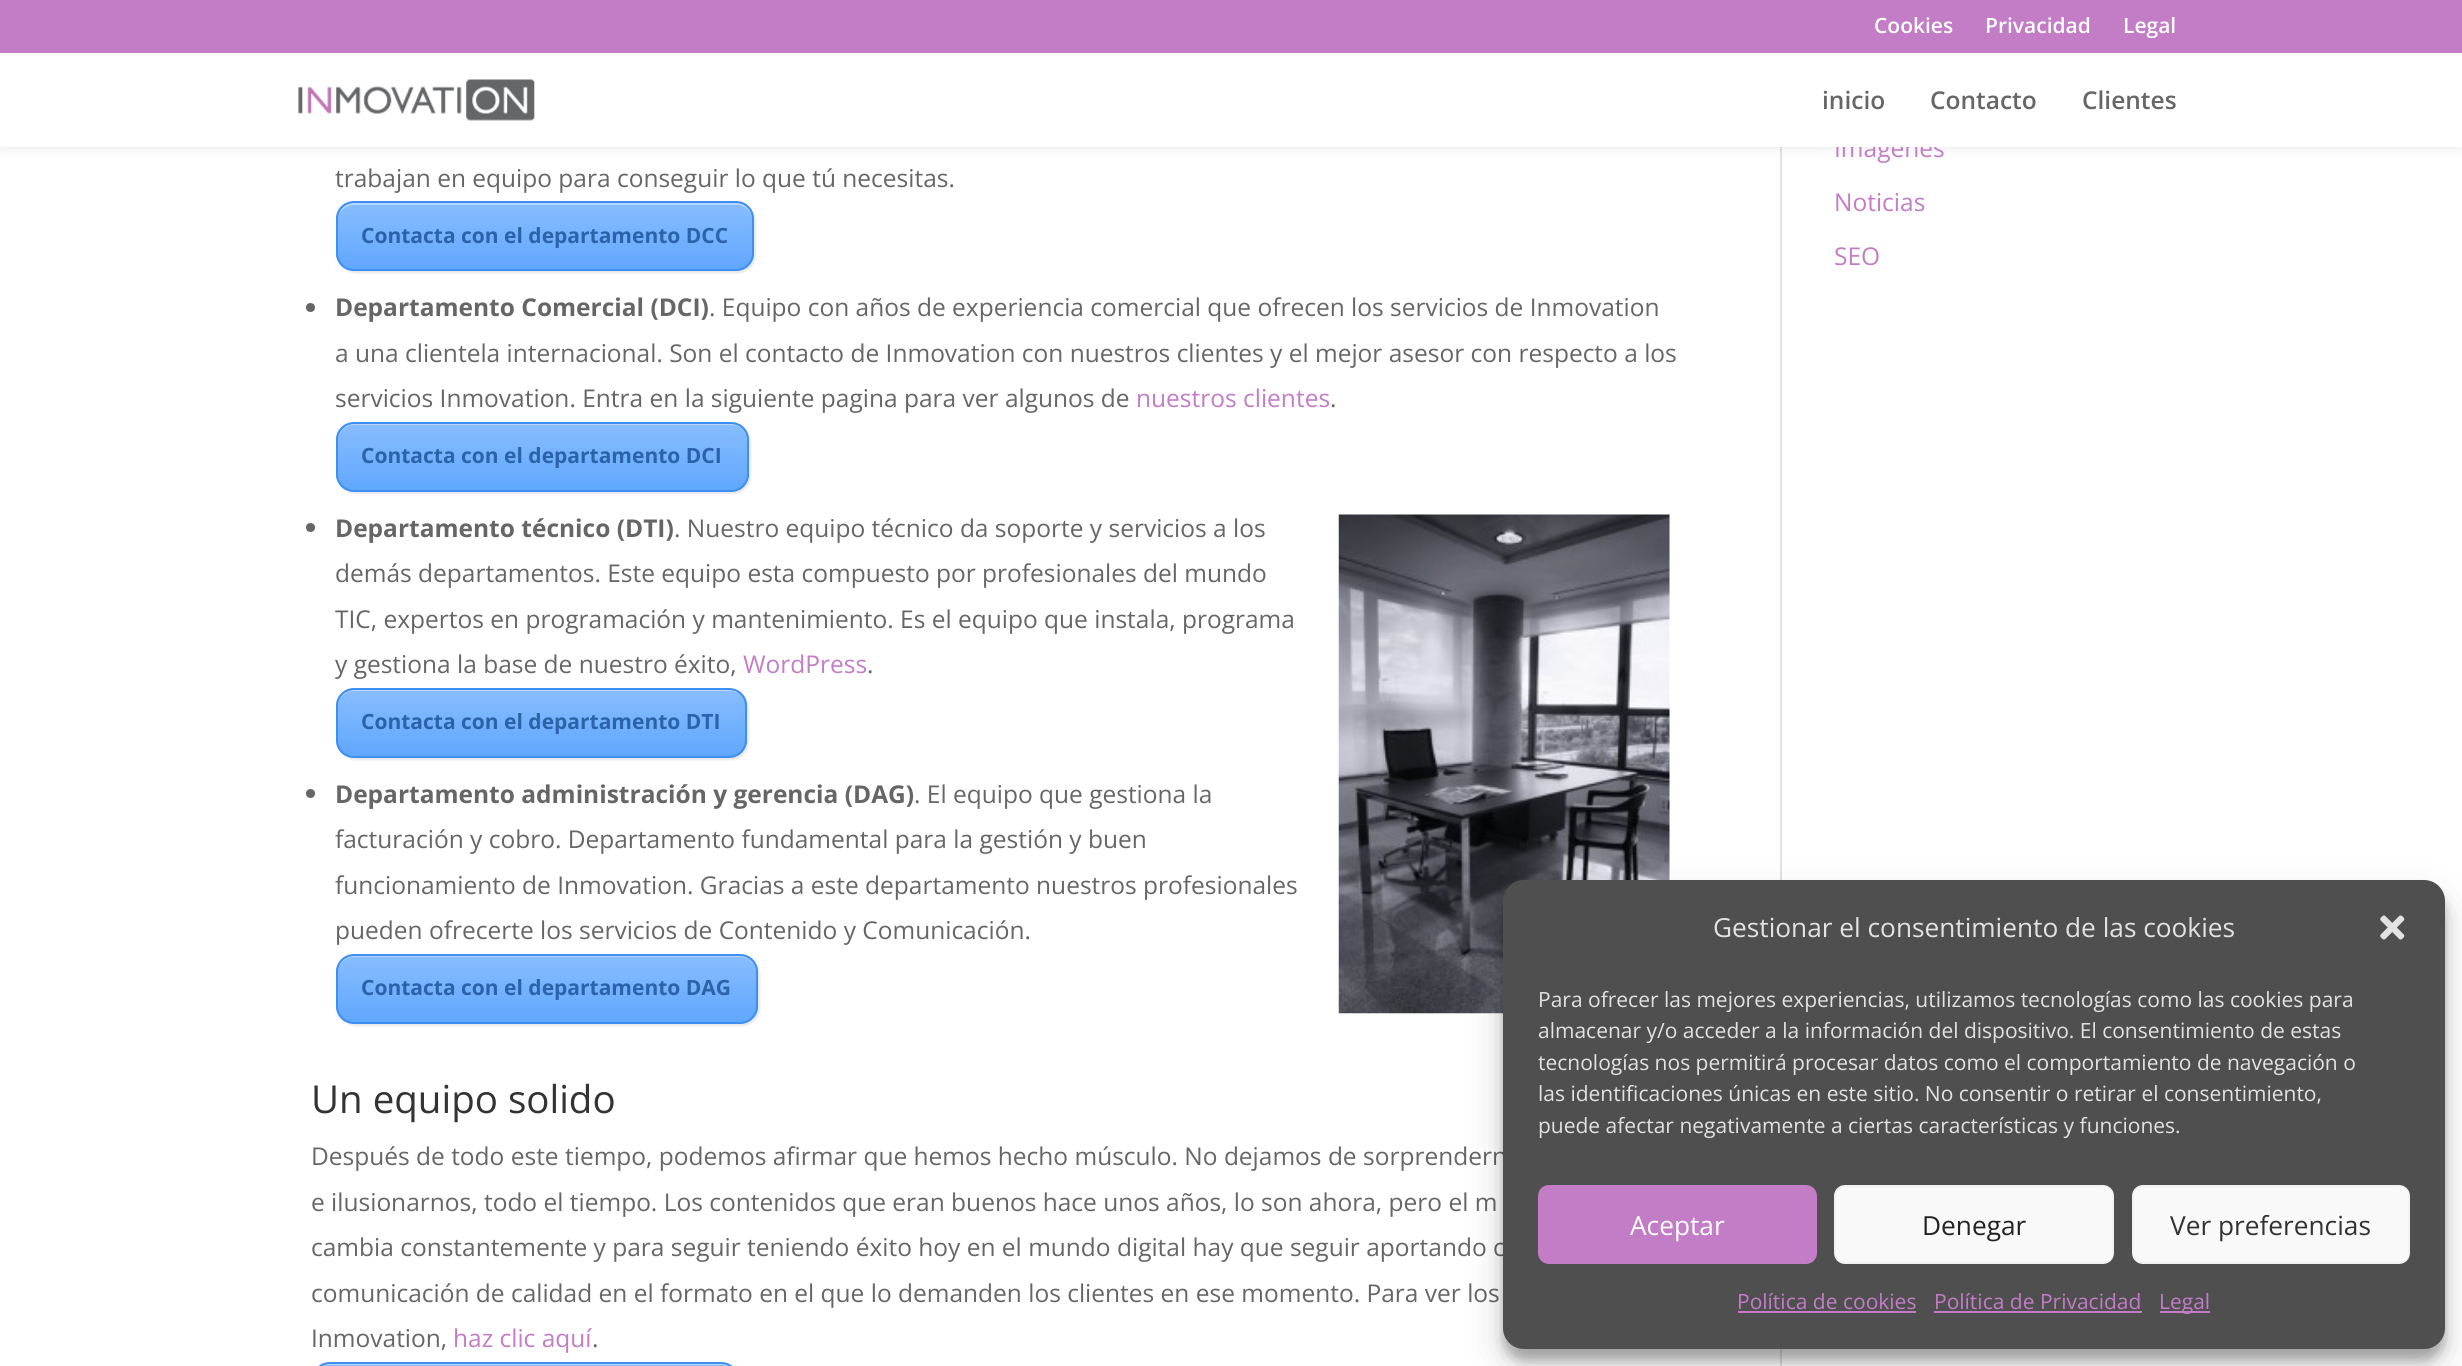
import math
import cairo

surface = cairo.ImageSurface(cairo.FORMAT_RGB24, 2462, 1366)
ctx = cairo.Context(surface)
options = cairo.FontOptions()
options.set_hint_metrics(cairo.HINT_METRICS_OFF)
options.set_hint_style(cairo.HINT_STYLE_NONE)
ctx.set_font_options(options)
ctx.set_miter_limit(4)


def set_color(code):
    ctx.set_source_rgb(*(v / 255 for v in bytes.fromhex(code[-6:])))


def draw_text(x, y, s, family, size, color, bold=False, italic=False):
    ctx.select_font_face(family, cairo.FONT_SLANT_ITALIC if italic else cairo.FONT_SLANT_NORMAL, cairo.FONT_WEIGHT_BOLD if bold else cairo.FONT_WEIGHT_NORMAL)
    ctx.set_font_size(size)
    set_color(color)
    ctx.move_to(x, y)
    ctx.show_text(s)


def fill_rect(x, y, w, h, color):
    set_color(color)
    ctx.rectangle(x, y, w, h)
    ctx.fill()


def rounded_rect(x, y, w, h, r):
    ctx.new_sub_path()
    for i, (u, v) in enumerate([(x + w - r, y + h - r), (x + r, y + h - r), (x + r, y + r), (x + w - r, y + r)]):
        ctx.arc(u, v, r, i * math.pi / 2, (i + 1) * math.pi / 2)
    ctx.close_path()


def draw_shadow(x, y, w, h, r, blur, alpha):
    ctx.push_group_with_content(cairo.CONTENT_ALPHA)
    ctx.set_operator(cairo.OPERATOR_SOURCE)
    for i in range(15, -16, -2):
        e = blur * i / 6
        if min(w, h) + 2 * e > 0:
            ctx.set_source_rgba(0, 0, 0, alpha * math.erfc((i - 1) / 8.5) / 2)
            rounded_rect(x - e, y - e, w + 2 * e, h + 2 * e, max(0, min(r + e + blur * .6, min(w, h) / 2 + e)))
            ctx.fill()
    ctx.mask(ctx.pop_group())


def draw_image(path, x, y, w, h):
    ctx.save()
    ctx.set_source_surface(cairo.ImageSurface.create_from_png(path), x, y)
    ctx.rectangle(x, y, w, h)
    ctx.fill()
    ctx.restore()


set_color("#ffffff")
ctx.paint()
fill_rect(1780, 147, 2, 1219, "#e2e2e2")
set_color("#000000")
draw_shadow(0, 53, 2462, 94, 0, 6, 0.1)
fill_rect(0, 0, 2462, 53, "#c37cc6")
draw_text(1874, 33, "Cookies", "Open Sans SemiBold", 21, "#ffffff")
draw_text(1985, 33, "Privacidad", "Open Sans SemiBold", 21, "#ffffff")
draw_text(2123, 33, "Legal", "Open Sans SemiBold", 21, "#ffffff")
draw_text(1834, 157, "Imágenes", "Open Sans", 24.5, "#c37cc6")
fill_rect(0, 53, 2462, 94, "#ffffff")
draw_image("assets/img1.png", 298, 79, 237, 42)
draw_text(1822, 109, "inicio", "Open Sans SemiBold", 24.5, "#666666")
draw_text(1930, 109, "Contacto", "Open Sans SemiBold", 24.5, "#666666")
draw_text(2082, 109, "Clientes", "Open Sans SemiBold", 24.5, "#666666")
draw_text(335, 187, "trabajan en equipo para conseguir lo que tú necesitas.", "Open Sans", 24.5, "#666666")
set_color("#000000")
draw_shadow(338, 203, 418, 70, 18, 1, 0.1)
ctx.save()
rounded_rect(336, 201, 418, 70, 18)
ctx.clip()
gradient = cairo.LinearGradient(545, 203, 545, 270)
gradient.add_color_stop_rgba(0, 0.533, 0.741, 1, 1)
gradient.add_color_stop_rgba(1, 0.376, 0.655, 1, 1)
ctx.set_source(gradient)
ctx.rectangle(336, 203, 418, 67)
ctx.fill()
ctx.restore()
ctx.set_source_rgba(1, 1, 1, 0.4)
ctx.new_path()
ctx.move_to(354, 205)
ctx.line_to(737, 205)
ctx.curve_to(745, 205, 752, 212, 752, 220)
ctx.line_to(752, 256)
ctx.curve_to(752, 259, 751, 261, 750, 264)
ctx.curve_to(752, 261, 753, 258, 753, 254)
ctx.line_to(753, 219)
ctx.curve_to(753, 210, 746, 203, 737, 203)
ctx.line_to(354, 203)
ctx.curve_to(345, 203, 338, 210, 338, 219)
ctx.line_to(338, 220)
ctx.curve_to(338, 212, 345, 205, 354, 205)
ctx.close_path()
ctx.fill()
rounded_rect(337, 202, 416, 68, 17)
set_color("#3e8ff4")
ctx.stroke()
draw_text(361, 243, "Contacta con el departamento DCC", "Open Sans", 21, "#2b63a8", bold=True)
set_color("#666666")
ctx.new_path()
ctx.arc(310.5, 307.5, 4.5, 0, 2 * math.pi)
ctx.fill()
draw_text(335, 316, "Departamento Comercial (DCI)", "Open Sans", 24.5, "#666666", bold=True)
draw_text(709, 316, ". Equipo con años de experiencia comercial que ofrecen los servicios de Inmovation", "Open Sans", 24.5, "#666666")
draw_text(335, 362, "a una clientela internacional. Son el contacto de Inmovation con nuestros clientes y el mejor asesor con respecto a los", "Open Sans", 24.5, "#666666")
draw_text(335, 407, "servicios Inmovation. Entra en la siguiente pagina para ver algunos de", "Open Sans", 24.5, "#666666")
draw_text(1136, 407, "nuestros clientes", "Open Sans", 24.5, "#c37cc6")
draw_text(1330, 407, ".", "Open Sans", 24.5, "#666666")
set_color("#000000")
draw_shadow(338, 424, 413, 70, 18, 1, 0.1)
ctx.save()
rounded_rect(336, 422, 413, 70, 18)
ctx.clip()
gradient = cairo.LinearGradient(543, 424, 543, 490)
gradient.add_color_stop_rgba(0, 0.533, 0.741, 1, 1)
gradient.add_color_stop_rgba(1, 0.376, 0.655, 1, 1)
ctx.set_source(gradient)
ctx.rectangle(336, 424, 413, 66)
ctx.fill()
ctx.restore()
ctx.set_source_rgba(1, 1, 1, 0.4)
ctx.new_path()
ctx.move_to(354, 425)
ctx.line_to(732, 425)
ctx.curve_to(740, 425, 747, 432, 747, 441)
ctx.line_to(747, 440)
ctx.curve_to(747, 431, 740, 424, 731, 424)
ctx.line_to(354, 424)
ctx.curve_to(345, 424, 338, 431, 338, 440)
ctx.line_to(338, 441)
ctx.curve_to(338, 432, 345, 425, 354, 425)
ctx.close_path()
ctx.fill()
rounded_rect(337, 423, 411, 68, 17)
set_color("#3e8ff4")
ctx.stroke()
draw_text(361, 463, "Contacta con el departamento DCI", "Open Sans", 21, "#2b63a8", bold=True)
set_color("#666666")
ctx.new_path()
ctx.arc(310.5, 527.5, 4.5, 0, 2 * math.pi)
ctx.fill()
draw_text(335, 537, "Departamento técnico (DTI)", "Open Sans", 24.5, "#666666", bold=True)
draw_text(674, 537, ". Nuestro equipo técnico da soporte y servicios a los", "Open Sans", 24.5, "#666666")
draw_image("assets/img2.png", 1338, 514, 332, 500)
draw_text(335, 582, "demás departamentos. Este equipo esta compuesto por profesionales del mundo", "Open Sans", 24.5, "#666666")
draw_text(335, 628, "TIC, expertos en programación y mantenimiento. Es el equipo que instala, programa", "Open Sans", 24.5, "#666666")
draw_text(335, 673, "y gestiona la base de nuestro éxito,", "Open Sans", 24.5, "#666666")
draw_text(743, 673, "WordPress", "Open Sans", 24.5, "#c37cc6")
draw_text(867, 673, ".", "Open Sans", 24.5, "#666666")
set_color("#000000")
draw_shadow(338, 690, 411, 70, 18, 1, 0.1)
ctx.save()
rounded_rect(336, 688, 411, 70, 18)
ctx.clip()
gradient = cairo.LinearGradient(542, 690, 542, 756)
gradient.add_color_stop_rgba(0, 0.533, 0.741, 1, 1)
gradient.add_color_stop_rgba(1, 0.376, 0.655, 1, 1)
ctx.set_source(gradient)
ctx.rectangle(336, 690, 411, 66)
ctx.fill()
ctx.restore()
ctx.set_source_rgba(1, 1, 1, 0.4)
ctx.new_path()
ctx.move_to(354, 691)
ctx.line_to(730, 691)
ctx.curve_to(738, 691, 746, 698, 746, 707)
ctx.line_to(746, 706)
ctx.curve_to(746, 697, 739, 690, 730, 690)
ctx.line_to(354, 690)
ctx.curve_to(345, 690, 338, 697, 338, 706)
ctx.line_to(338, 707)
ctx.curve_to(338, 698, 345, 691, 354, 691)
ctx.close_path()
ctx.fill()
rounded_rect(337, 689, 409, 68, 17)
set_color("#3e8ff4")
ctx.stroke()
draw_text(361, 729, "Contacta con el departamento DTI", "Open Sans", 21, "#2b63a8", bold=True)
set_color("#666666")
ctx.new_path()
ctx.arc(310.5, 793.5, 4.5, 0, 2 * math.pi)
ctx.fill()
draw_text(335, 803, "Departamento administración y gerencia (DAG)", "Open Sans", 24.5, "#666666", bold=True)
draw_text(914, 803, ". El equipo que gestiona la", "Open Sans", 24.5, "#666666")
draw_text(335, 848, "facturación y cobro. Departamento fundamental para la gestión y buen", "Open Sans", 24.5, "#666666")
draw_text(335, 894, "funcionamiento de Inmovation. Gracias a este departamento nuestros profesionales", "Open Sans", 24.5, "#666666")
draw_text(335, 939, "pueden ofrecerte los servicios de Contenido y Comunicación.", "Open Sans", 24.5, "#666666")
set_color("#000000")
draw_shadow(338, 956, 422, 70, 18, 1, 0.1)
ctx.save()
rounded_rect(336, 954, 422, 70, 18)
ctx.clip()
gradient = cairo.LinearGradient(547, 956, 547, 1022)
gradient.add_color_stop_rgba(0, 0.533, 0.741, 1, 1)
gradient.add_color_stop_rgba(1, 0.376, 0.655, 1, 1)
ctx.set_source(gradient)
ctx.rectangle(336, 956, 422, 66)
ctx.fill()
ctx.restore()
ctx.set_source_rgba(1, 1, 1, 0.4)
ctx.new_path()
ctx.move_to(354, 957)
ctx.line_to(740, 957)
ctx.curve_to(749, 957, 756, 964, 756, 973)
ctx.line_to(756, 972)
ctx.curve_to(756, 963, 749, 956, 740, 956)
ctx.line_to(354, 956)
ctx.curve_to(345, 956, 338, 963, 338, 972)
ctx.line_to(338, 973)
ctx.curve_to(338, 964, 345, 957, 354, 957)
ctx.close_path()
ctx.fill()
rounded_rect(337, 955, 420, 68, 17)
set_color("#3e8ff4")
ctx.stroke()
draw_text(361, 995, "Contacta con el departamento DAG", "Open Sans", 21, "#2b63a8", bold=True)
draw_text(311, 1113, "Un equipo solido", "Open Sans", 38.5, "#333333")
draw_text(311, 1165, "Después de todo este tiempo, podemos afirmar que hemos hecho músculo. No dejamos de sorprendern", "Open Sans", 24.5, "#666666")
draw_text(311, 1211, "e ilusionarnos, todo el tiempo. Los contenidos que eran buenos hace unos años, lo son ahora, pero el m", "Open Sans", 24.5, "#666666")
draw_text(311, 1256, "cambia constantemente y para seguir teniendo éxito hoy en el mundo digital hay que seguir aportando c", "Open Sans", 24.5, "#666666")
draw_text(311, 1302, "comunicación de calidad en el formato en el que lo demanden los clientes en ese momento. Para ver los", "Open Sans", 24.5, "#666666")
draw_text(311, 1347, "Inmovation,", "Open Sans", 24.5, "#666666")
draw_text(453, 1347, "haz clic aquí", "Open Sans", 24.5, "#c37cc6")
draw_text(592, 1347, ".", "Open Sans", 24.5, "#666666")
ctx.save()
rounded_rect(312, 1362, 427, 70, 18)
ctx.clip()
gradient = cairo.LinearGradient(525, 1363, 525, 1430)
gradient.add_color_stop_rgba(0, 0.533, 0.741, 1, 1)
gradient.add_color_stop_rgba(1, 0.376, 0.655, 1, 1)
ctx.set_source(gradient)
ctx.rectangle(312, 1363, 427, 3)
ctx.fill()
ctx.restore()
set_color("#b7d7ff")
ctx.new_path()
ctx.move_to(329, 1365)
ctx.line_to(721, 1365)
ctx.curve_to(730, 1365, 737, 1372, 737, 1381)
ctx.line_to(737, 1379)
ctx.curve_to(737, 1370, 730, 1363, 721, 1363)
ctx.line_to(329, 1363)
ctx.curve_to(320, 1363, 313, 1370, 313, 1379)
ctx.line_to(313, 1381)
ctx.curve_to(313, 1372, 320, 1365, 329, 1365)
ctx.close_path()
ctx.fill()
rounded_rect(313, 1363, 425, 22, 17)
set_color("#3e8ff4")
ctx.stroke()
draw_text(1834, 211, "Noticias", "Open Sans", 24.5, "#c37cc6")
draw_text(1834, 265, "SEO", "Open Sans", 24.5, "#c37cc6")
set_color("#000000")
draw_shadow(1503, 891, 942, 469, 21, 5, 0.23)
draw_shadow(1503, 898, 942, 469, 21, 17.5, 0.19)
set_color("#4f4f4f")
rounded_rect(1503, 880, 942, 469, 21)
ctx.fill()
draw_text(1713, 937, "Gestionar el consentimiento de las cookies", "Open Sans", 26.25, "#e2e2e2")
draw_image("assets/img3.png", 2380, 915, 25, 25)
draw_text(1538, 1007, "Para ofrecer las mejores experiencias, utilizamos tecnologías como las cookies para", "Open Sans", 21, "#e2e2e2")
draw_text(1538, 1038, "almacenar y/o acceder a la información del dispositivo. El consentimiento de estas", "Open Sans", 21, "#e2e2e2")
draw_text(1538, 1070, "tecnologías nos permitirá procesar datos como el comportamiento de navegación o", "Open Sans", 21, "#e2e2e2")
draw_text(1538, 1101, "las identificaciones únicas en este sitio. No consentir o retirar el consentimiento,", "Open Sans", 21, "#e2e2e2")
draw_text(1538, 1133, "puede afectar negativamente a ciertas características y funciones.", "Open Sans", 21, "#e2e2e2")
set_color("#c37cc6")
rounded_rect(1539, 1186, 277, 77, 10)
ctx.fill_preserve()
ctx.stroke()
draw_text(1630, 1235, "Aceptar", "Open Sans", 26.25, "#ffffff")
set_color("#f9f9f9")
rounded_rect(1835, 1186, 278, 77, 10)
ctx.fill_preserve()
set_color("#f2f2f2")
ctx.stroke()
draw_text(1922, 1235, "Denegar", "Open Sans", 26.25, "#222222")
set_color("#f9f9f9")
rounded_rect(2133, 1186, 276, 77, 10)
ctx.fill_preserve()
set_color("#f2f2f2")
ctx.stroke()
draw_text(2170, 1235, "Ver preferencias", "Open Sans", 26.25, "#333333")
draw_text(1737, 1309, "Política de cookies", "Open Sans", 21, "#c37cc6")
fill_rect(1738, 1311, 178, 2, "#c37cc6")
draw_text(1934, 1309, "Política de Privacidad", "Open Sans", 21, "#c37cc6")
fill_rect(1934, 1311, 208, 2, "#c37cc6")
fill_rect(2160, 1311, 50, 2, "#c37cc6")
draw_text(2159, 1309, "Legal", "Open Sans", 21, "#c37cc6")
surface.write_to_png("output.png")
